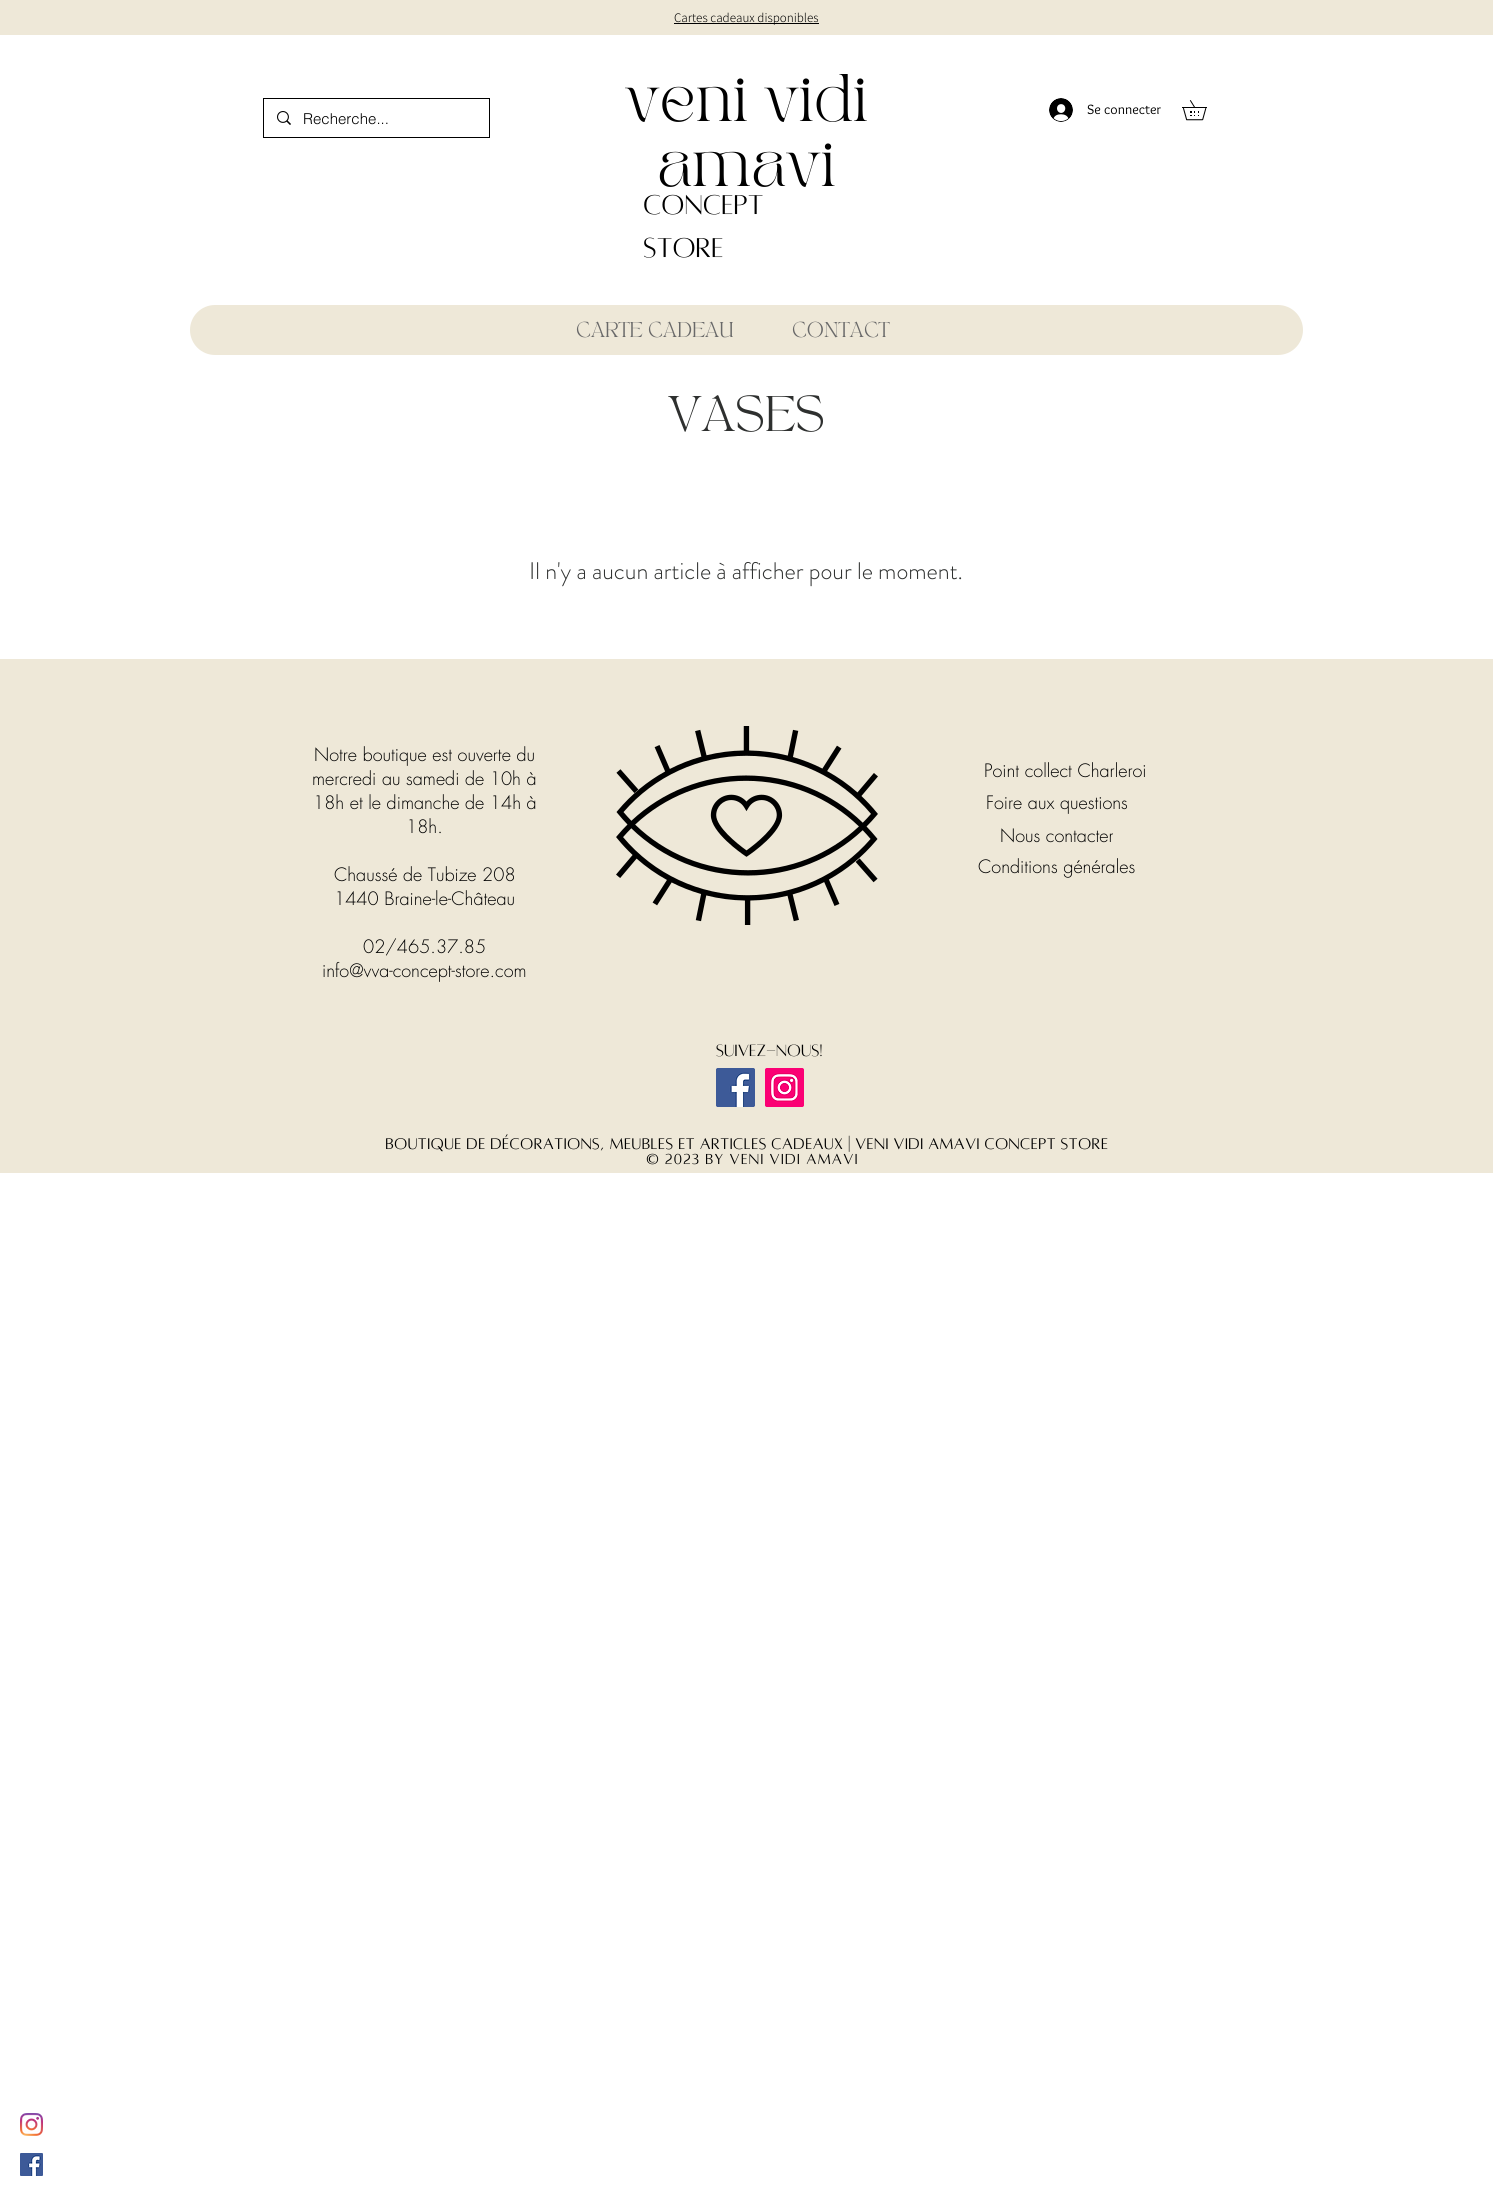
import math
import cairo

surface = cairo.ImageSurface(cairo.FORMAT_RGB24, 1493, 2196)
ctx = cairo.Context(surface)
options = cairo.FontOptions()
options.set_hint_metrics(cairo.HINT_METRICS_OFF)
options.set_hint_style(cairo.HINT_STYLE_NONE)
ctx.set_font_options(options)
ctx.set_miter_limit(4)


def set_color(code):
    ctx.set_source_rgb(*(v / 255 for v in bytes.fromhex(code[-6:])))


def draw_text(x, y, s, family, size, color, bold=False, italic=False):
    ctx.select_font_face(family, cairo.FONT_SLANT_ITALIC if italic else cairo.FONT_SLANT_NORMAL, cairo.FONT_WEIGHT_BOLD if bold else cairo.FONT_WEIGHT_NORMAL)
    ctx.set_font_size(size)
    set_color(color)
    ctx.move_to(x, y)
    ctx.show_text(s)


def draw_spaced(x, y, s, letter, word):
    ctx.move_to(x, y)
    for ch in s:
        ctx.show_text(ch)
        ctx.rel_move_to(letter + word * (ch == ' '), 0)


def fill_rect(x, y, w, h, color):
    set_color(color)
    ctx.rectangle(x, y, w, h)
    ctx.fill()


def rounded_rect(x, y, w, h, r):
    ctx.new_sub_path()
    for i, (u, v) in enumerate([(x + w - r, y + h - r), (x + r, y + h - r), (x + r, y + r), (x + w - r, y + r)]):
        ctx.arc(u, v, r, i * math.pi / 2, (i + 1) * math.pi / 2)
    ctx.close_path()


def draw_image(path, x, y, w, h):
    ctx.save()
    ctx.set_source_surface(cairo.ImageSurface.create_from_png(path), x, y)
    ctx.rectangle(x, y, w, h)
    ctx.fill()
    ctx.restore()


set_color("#ffffff")
ctx.paint()
fill_rect(0, 0, 1493, 35, "#eee8d8")
fill_rect(674, 23, 145, 1, "#000000")
draw_text(674, 22, "Cartes cadeaux disponibles", "Assistant Light", 13, "#000000")
draw_text(625, 121, "veni vidi", "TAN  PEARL", 47, "#000000")
draw_text(657, 186, "amavi", "TAN  PEARL", 47, "#000000")
draw_text(643, 214, "Concept", "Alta", 30, "#000000")
draw_text(643, 257, "store", "Alta", 30, "#000000")
draw_image("assets/img1.png", 1049, 98, 24, 24)
draw_text(1087, 114, "Se connecter", "Overlock", 14, "#000000")
draw_image("assets/img2.png", 1182, 100, 25, 21)
ctx.rectangle(263.5, 98.5, 226, 39)
ctx.set_line_width(1)
ctx.stroke()
draw_image("assets/img3.png", 277, 111, 14, 14)
draw_text(303, 124, "Recherche...", "helvetica Light", 15, "#000000")
set_color("#eee8d8")
rounded_rect(190, 305, 1113, 50, 25)
ctx.fill()
draw_text(576, 337, "CARTE CADEAU", "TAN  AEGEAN", 15, "#696969")
draw_text(792, 337, "CONTACT", "TAN  AEGEAN", 15, "#696969")
draw_text(668, 431, "VASES", "TAN  AEGEAN", 35, "#2e302f")
draw_text(529, 579, "Il n'y a aucun article à afficher pour le moment.", "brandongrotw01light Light", 24, "#2e302f")
fill_rect(0, 659, 1493, 514, "#eee8d8")
draw_text(314, 761, "Notre boutique est ouverte du", "futura Light", 18, "#000000")
draw_text(312, 785, "mercredi au samedi de 10h à", "futura Light", 18, "#000000")
draw_text(313, 809, "18h et le dimanche de 14h à", "futura Light", 18, "#000000")
draw_text(406, 833, "18h.", "futura Light", 18, "#000000")
draw_text(334, 881, "Chaussé de Tubize 208", "futura Light", 18, "#000000")
draw_text(334, 905, "1440 Braine-le-Château", "futura Light", 18, "#000000")
draw_text(363, 953, "02/465.37.85", "futura Light", 18, "#000000")
draw_text(322, 977, "info@vva-concept-store.com", "futura Light", 18, "#000000")
draw_image("assets/img4.png", 616, 726, 262, 199)
draw_text(984, 777, "Point collect Charleroi", "futura Light", 18, "#000000")
draw_text(986, 809, "Foire aux questions", "futura Light", 18, "#000000")
draw_text(1000, 842, "Nous contacter", "futura Light", 18, "#000000")
draw_text(978, 873, "Conditions générales", "futura Light", 18, "#000000")
draw_text(716, 1056, "Suivez-nous!", "Alta", 18, "#000000")
draw_image("assets/img5.png", 716, 1068, 39, 39)
draw_image("assets/img6.png", 765, 1068, 39, 39)
draw_text(385, 1149, "Boutique de décorations, meubles et articles cadeaux | Veni Vidi Amavi Concept Store", "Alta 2", 17, "#000000")
ctx.set_font_size(16)
draw_spaced(646, 1164, "© 2023 by Veni Vidi Amavi", 0.8, 0)
draw_image("assets/img7.png", 20, 2113, 23, 23)
draw_image("assets/img8.png", 20, 2153, 23, 23)
surface.write_to_png("output.png")
